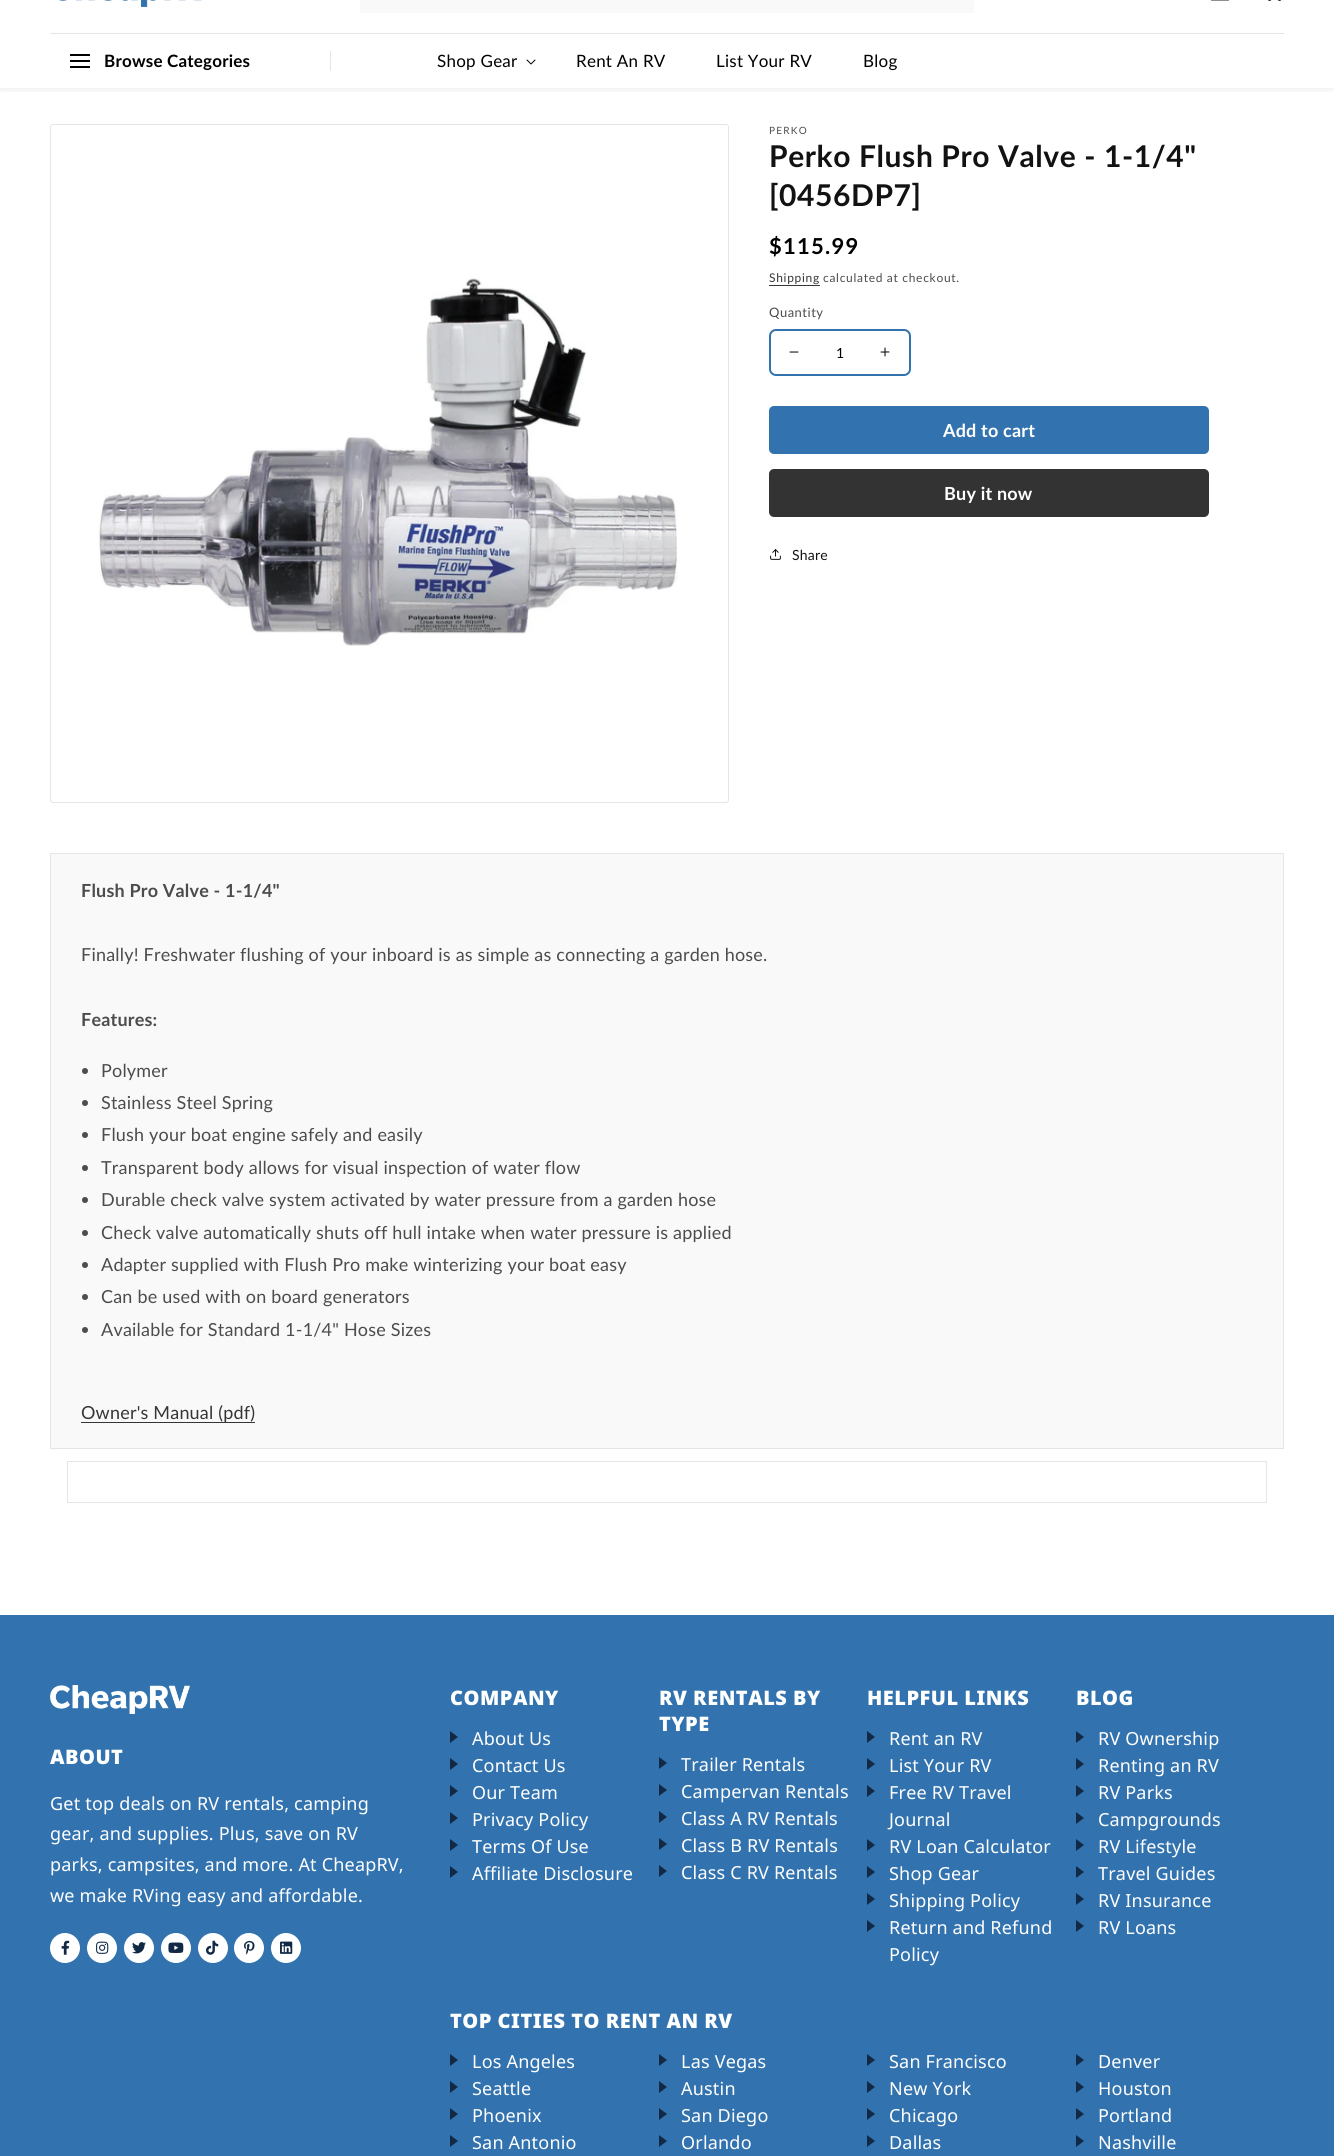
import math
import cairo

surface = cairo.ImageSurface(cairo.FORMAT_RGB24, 1334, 2156)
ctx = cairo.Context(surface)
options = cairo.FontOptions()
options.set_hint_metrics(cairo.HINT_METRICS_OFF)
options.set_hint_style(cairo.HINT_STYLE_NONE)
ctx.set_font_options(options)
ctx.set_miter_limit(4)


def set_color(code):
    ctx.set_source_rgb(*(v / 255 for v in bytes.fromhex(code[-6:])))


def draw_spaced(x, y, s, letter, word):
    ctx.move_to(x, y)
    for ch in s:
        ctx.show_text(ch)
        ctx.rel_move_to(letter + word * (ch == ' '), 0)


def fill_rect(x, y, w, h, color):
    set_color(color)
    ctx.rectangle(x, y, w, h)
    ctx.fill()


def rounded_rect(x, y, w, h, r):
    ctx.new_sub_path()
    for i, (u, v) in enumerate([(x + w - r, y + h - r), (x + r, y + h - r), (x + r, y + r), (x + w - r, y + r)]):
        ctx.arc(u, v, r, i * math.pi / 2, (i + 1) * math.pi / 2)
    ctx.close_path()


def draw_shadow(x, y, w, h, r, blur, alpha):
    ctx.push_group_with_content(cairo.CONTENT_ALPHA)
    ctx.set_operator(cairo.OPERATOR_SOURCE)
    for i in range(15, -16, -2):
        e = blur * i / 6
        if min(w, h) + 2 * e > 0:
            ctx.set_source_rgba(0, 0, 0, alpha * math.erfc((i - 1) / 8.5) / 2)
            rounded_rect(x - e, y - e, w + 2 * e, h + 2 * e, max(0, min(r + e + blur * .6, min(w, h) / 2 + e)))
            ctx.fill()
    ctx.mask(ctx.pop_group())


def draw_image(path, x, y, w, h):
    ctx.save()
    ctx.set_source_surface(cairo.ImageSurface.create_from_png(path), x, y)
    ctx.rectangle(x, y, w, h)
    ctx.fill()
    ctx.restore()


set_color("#ffffff")
ctx.paint()
ctx.save()
ctx.rectangle(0, 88, 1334, 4)
ctx.clip()
set_color("#000000")
draw_shadow(0, -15, 1334, 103, 0, 5, 0.1)
ctx.restore()
draw_image("assets/img1.png", 58, 0, 144, 7)
fill_rect(360, 0, 614, 13, "#f9f9f9")
draw_image("assets/img2.png", 1211, 0, 18, 1)
draw_image("assets/img3.png", 1268, 0, 14, 1)
fill_rect(50, 33, 1234, 1, "#e5e5e5")
fill_rect(70, 54, 20, 2, "#000000")
fill_rect(70, 60, 20, 2, "#000000")
fill_rect(70, 66, 20, 2, "#000000")
ctx.select_font_face("Lato", cairo.FONT_SLANT_NORMAL, cairo.FONT_WEIGHT_BOLD)
ctx.set_font_size(17)
draw_spaced(104, 67, "Browse Categories", 0.2, 0)
fill_rect(330, 51, 1, 20, "#e5e5e5")
ctx.select_font_face("Lato")
set_color("#000000")
draw_spaced(437, 67, "Shop Gear", 0.25, 0)
draw_image("assets/img4.png", 526, 59, 10, 6)
draw_spaced(576, 67, "Rent An RV", 0.25, 0)
draw_spaced(716, 67, "List Your RV", 0.25, 0)
draw_spaced(863, 67, "Blog", 0.25, 0)
rounded_rect(50.5, 124.5, 678, 678, 2.5)
set_color("#e5e5e5")
ctx.set_line_width(1)
ctx.stroke()
draw_image("assets/img5.png", 99, 278, 579, 368)
draw_image("assets/img6.png", 100, 278, 577, 368)
ctx.set_font_size(10)
set_color("#4c4c4c")
draw_spaced(769, 134, "PERKO", 1.25, 0)
ctx.select_font_face("Lato", cairo.FONT_SLANT_NORMAL, cairo.FONT_WEIGHT_BOLD)
ctx.set_font_size(30)
set_color("#121212")
draw_spaced(769, 167, "Perko Flush Pro Valve - 1-1/4\"", 0.6, 0)
draw_spaced(769, 206, "[0456DP7]", 0.6, 0)
ctx.set_font_size(22)
set_color("#000000")
draw_spaced(769, 254, "$115.99", 1.25, 0)
ctx.select_font_face("Lato")
ctx.set_font_size(12)
set_color("#353535")
draw_spaced(769, 282, "Shipping", 0.7, 0)
fill_rect(769, 285, 51, 1, "#363636")
set_color("#4c4c4c")
draw_spaced(823, 282, "calculated at checkout.", 0.7, 0)
ctx.set_font_size(13)
draw_spaced(769, 317, "Quantity", 0.5, 0)
rounded_rect(770, 330, 140, 45, 6)
set_color("#3273af")
ctx.set_line_width(2)
ctx.stroke()
draw_image("assets/img7.png", 789, 351, 10, 2)
ctx.set_font_size(14)
set_color("#000000")
draw_spaced(836, 358, "1", 0.2, 0)
draw_image("assets/img8.png", 880, 347, 10, 10)
set_color("#3273af")
rounded_rect(769, 406, 440, 48, 5)
ctx.fill()
ctx.select_font_face("Lato", cairo.FONT_SLANT_NORMAL, cairo.FONT_WEIGHT_BOLD)
ctx.set_font_size(18)
set_color("#ffffff")
draw_spaced(943, 437, "Add to cart", 0.2, 0)
set_color("#333333")
rounded_rect(769, 469, 440, 48, 5)
ctx.fill()
set_color("#ffffff")
draw_spaced(944, 500, "Buy it now", 0.2, 0)
draw_image("assets/img9.png", 770, 549, 11, 11)
ctx.select_font_face("Lato")
ctx.set_font_size(14)
set_color("#121212")
draw_spaced(792, 560, "Share", 0.2, 0)
set_color("#f9f9f9")
ctx.rectangle(50.5, 853.5, 1233, 595)
ctx.fill_preserve()
set_color("#e5e5e5")
ctx.set_line_width(1)
ctx.stroke()
ctx.select_font_face("Lato", cairo.FONT_SLANT_NORMAL, cairo.FONT_WEIGHT_BOLD)
ctx.set_font_size(18)
set_color("#4c4c4c")
draw_spaced(81, 897, "Flush Pro Valve - 1-1/4\"", 0.2, 0)
ctx.select_font_face("Lato")
draw_spaced(81, 961, "Finally! Freshwater flushing of your inboard is as simple as connecting a garden hose.", 0.2, 0)
ctx.select_font_face("Lato", cairo.FONT_SLANT_NORMAL, cairo.FONT_WEIGHT_BOLD)
draw_spaced(81, 1026, "Features:", 0.2, 0)
ctx.new_path()
ctx.arc(85, 1071, 3, 0, 2 * math.pi)
ctx.fill()
ctx.select_font_face("Lato")
draw_spaced(101, 1077, "Polymer", 0.2, 0)
ctx.new_path()
ctx.arc(85, 1103, 3, 0, 2 * math.pi)
ctx.fill()
draw_spaced(101, 1109, "Stainless Steel Spring", 0.2, 0)
ctx.new_path()
ctx.arc(85, 1135, 3, 0, 2 * math.pi)
ctx.fill()
draw_spaced(101, 1141, "Flush your boat engine safely and easily", 0.2, 0)
ctx.new_path()
ctx.arc(85, 1168, 3, 0, 2 * math.pi)
ctx.fill()
draw_spaced(101, 1174, "Transparent body allows for visual inspection of water flow", 0.2, 0)
ctx.new_path()
ctx.arc(85, 1200, 3, 0, 2 * math.pi)
ctx.fill()
draw_spaced(101, 1206, "Durable check valve system activated by water pressure from a garden hose", 0.2, 0)
ctx.new_path()
ctx.arc(85, 1233, 3, 0, 2 * math.pi)
ctx.fill()
draw_spaced(101, 1239, "Check valve automatically shuts off hull intake when water pressure is applied", 0.2, 0)
ctx.new_path()
ctx.arc(85, 1265, 3, 0, 2 * math.pi)
ctx.fill()
draw_spaced(101, 1271, "Adapter supplied with Flush Pro make winterizing your boat easy", 0.2, 0)
ctx.new_path()
ctx.arc(85, 1297, 3, 0, 2 * math.pi)
ctx.fill()
draw_spaced(101, 1303, "Can be used with on board generators", 0.2, 0)
ctx.new_path()
ctx.arc(85, 1330, 3, 0, 2 * math.pi)
ctx.fill()
draw_spaced(101, 1336, "Available for Standard 1-1/4\" Hose Sizes", 0.2, 0)
fill_rect(81, 1422, 174, 1, "#353535")
draw_spaced(81, 1419, "Owner's Manual (pdf)", 0.2, 0)
ctx.rectangle(67.5, 1461.5, 1199, 41)
set_color("#e5e5e5")
ctx.stroke()
fill_rect(0, 1615, 1334, 541, "#3273af")
draw_image("assets/img10.png", 50, 1685, 140, 29)
ctx.select_font_face("Noto Sans Black")
ctx.set_font_size(20)
set_color("#ffffff")
draw_spaced(50, 1764, "ABOUT", 0.5, 0)
ctx.select_font_face("Noto Sans")
ctx.set_font_size(18)
draw_spaced(50, 1810, "Get top deals on RV rentals, camping", 0.2, 0)
draw_spaced(50, 1840, "gear, and supplies. Plus, save on RV", 0.2, 0)
draw_spaced(50, 1871, "parks, campsites, and more. At CheapRV,", 0.2, 0)
draw_spaced(50, 1902, "we make RVing easy and affordable.", 0.2, 0)
ctx.new_path()
ctx.arc(65, 1948, 15, 0, 2 * math.pi)
ctx.fill()
draw_image("assets/img11.png", 61, 1940, 9, 15)
ctx.arc(102, 1948, 15, 0, 2 * math.pi)
ctx.fill()
draw_image("assets/img12.png", 96, 1941, 13, 13)
ctx.arc(139, 1948, 15, 0, 2 * math.pi)
ctx.fill()
draw_image("assets/img13.png", 132, 1942, 14, 12)
ctx.arc(176, 1948, 15, 0, 2 * math.pi)
ctx.fill()
draw_image("assets/img14.png", 168, 1942, 16, 11)
ctx.arc(213, 1948, 15, 0, 2 * math.pi)
ctx.fill()
draw_image("assets/img15.png", 206, 1940, 13, 15)
ctx.arc(249, 1948, 15, 0, 2 * math.pi)
ctx.fill()
draw_image("assets/img16.png", 244, 1940, 11, 15)
ctx.arc(286, 1948, 15, 0, 2 * math.pi)
ctx.fill()
draw_image("assets/img17.png", 280, 1941, 13, 13)
ctx.select_font_face("Noto Sans Black")
ctx.set_font_size(20)
draw_spaced(450, 1705, "COMPANY", 0.5, 0)
set_color("#122945")
ctx.new_path()
ctx.move_to(450, 1743)
ctx.line_to(450, 1731)
ctx.line_to(458, 1737)
ctx.close_path()
ctx.fill()
ctx.select_font_face("Noto Sans")
ctx.set_font_size(18)
set_color("#ffffff")
draw_spaced(472, 1745, "About Us", 0.2, 0)
set_color("#122945")
ctx.new_path()
ctx.move_to(450, 1770)
ctx.line_to(450, 1758)
ctx.line_to(458, 1764)
ctx.close_path()
ctx.fill()
set_color("#ffffff")
draw_spaced(472, 1772, "Contact Us", 0.2, 0)
set_color("#122945")
ctx.new_path()
ctx.move_to(450, 1797)
ctx.line_to(450, 1785)
ctx.line_to(458, 1791)
ctx.close_path()
ctx.fill()
set_color("#ffffff")
draw_spaced(472, 1799, "Our Team", 0.2, 0)
set_color("#122945")
ctx.new_path()
ctx.move_to(450, 1824)
ctx.line_to(450, 1812)
ctx.line_to(458, 1818)
ctx.close_path()
ctx.fill()
set_color("#ffffff")
draw_spaced(472, 1826, "Privacy Policy", 0.2, 0)
set_color("#122945")
ctx.new_path()
ctx.move_to(450, 1851)
ctx.line_to(450, 1839)
ctx.line_to(458, 1845)
ctx.close_path()
ctx.fill()
set_color("#ffffff")
draw_spaced(472, 1853, "Terms Of Use", 0.2, 0)
set_color("#122945")
ctx.new_path()
ctx.move_to(450, 1878)
ctx.line_to(450, 1866)
ctx.line_to(458, 1872)
ctx.close_path()
ctx.fill()
set_color("#ffffff")
draw_spaced(472, 1880, "Affiliate Disclosure", 0.2, 0)
ctx.select_font_face("Noto Sans Black")
ctx.set_font_size(20)
draw_spaced(659, 1705, "RV RENTALS BY", 0.5, 0)
draw_spaced(659, 1731, "TYPE", 0.5, 0)
set_color("#122945")
ctx.new_path()
ctx.move_to(659, 1769)
ctx.line_to(659, 1757)
ctx.line_to(667, 1763)
ctx.close_path()
ctx.fill()
ctx.select_font_face("Noto Sans")
ctx.set_font_size(18)
set_color("#ffffff")
draw_spaced(681, 1771, "Trailer Rentals", 0.2, 0)
set_color("#122945")
ctx.new_path()
ctx.move_to(659, 1796)
ctx.line_to(659, 1784)
ctx.line_to(667, 1790)
ctx.close_path()
ctx.fill()
set_color("#ffffff")
draw_spaced(681, 1798, "Campervan Rentals", 0.2, 0)
set_color("#122945")
ctx.new_path()
ctx.move_to(659, 1823)
ctx.line_to(659, 1811)
ctx.line_to(667, 1817)
ctx.close_path()
ctx.fill()
set_color("#ffffff")
draw_spaced(681, 1825, "Class A RV Rentals", 0.2, 0)
set_color("#122945")
ctx.new_path()
ctx.move_to(659, 1850)
ctx.line_to(659, 1838)
ctx.line_to(667, 1844)
ctx.close_path()
ctx.fill()
set_color("#ffffff")
draw_spaced(681, 1852, "Class B RV Rentals", 0.2, 0)
set_color("#122945")
ctx.new_path()
ctx.move_to(659, 1877)
ctx.line_to(659, 1865)
ctx.line_to(667, 1871)
ctx.close_path()
ctx.fill()
set_color("#ffffff")
draw_spaced(681, 1879, "Class C RV Rentals", 0.2, 0)
ctx.select_font_face("Noto Sans Black")
ctx.set_font_size(20)
draw_spaced(867, 1705, "HELPFUL LINKS", 0.5, 0)
set_color("#122945")
ctx.new_path()
ctx.move_to(867, 1743)
ctx.line_to(867, 1731)
ctx.line_to(875, 1737)
ctx.close_path()
ctx.fill()
ctx.select_font_face("Noto Sans")
ctx.set_font_size(18)
set_color("#ffffff")
draw_spaced(889, 1745, "Rent an RV", 0.2, 0)
set_color("#122945")
ctx.new_path()
ctx.move_to(867, 1770)
ctx.line_to(867, 1758)
ctx.line_to(875, 1764)
ctx.close_path()
ctx.fill()
set_color("#ffffff")
draw_spaced(889, 1772, "List Your RV", 0.2, 0)
set_color("#122945")
ctx.new_path()
ctx.move_to(867, 1797)
ctx.line_to(867, 1785)
ctx.line_to(875, 1791)
ctx.close_path()
ctx.fill()
set_color("#ffffff")
draw_spaced(889, 1799, "Free RV Travel", 0.2, 0)
draw_spaced(889, 1826, "Journal", 0.2, 0)
set_color("#122945")
ctx.new_path()
ctx.move_to(867, 1851)
ctx.line_to(867, 1839)
ctx.line_to(875, 1845)
ctx.close_path()
ctx.fill()
set_color("#ffffff")
draw_spaced(889, 1853, "RV Loan Calculator", 0.2, 0)
set_color("#122945")
ctx.new_path()
ctx.move_to(867, 1878)
ctx.line_to(867, 1866)
ctx.line_to(875, 1872)
ctx.close_path()
ctx.fill()
set_color("#ffffff")
draw_spaced(889, 1880, "Shop Gear", 0.2, 0)
set_color("#122945")
ctx.new_path()
ctx.move_to(867, 1905)
ctx.line_to(867, 1893)
ctx.line_to(875, 1899)
ctx.close_path()
ctx.fill()
set_color("#ffffff")
draw_spaced(889, 1907, "Shipping Policy", 0.2, 0)
set_color("#122945")
ctx.new_path()
ctx.move_to(867, 1932)
ctx.line_to(867, 1920)
ctx.line_to(875, 1926)
ctx.close_path()
ctx.fill()
set_color("#ffffff")
draw_spaced(889, 1934, "Return and Refund", 0.2, 0)
draw_spaced(889, 1961, "Policy", 0.2, 0)
ctx.select_font_face("Noto Sans Black")
ctx.set_font_size(20)
draw_spaced(1076, 1705, "BLOG", 0.5, 0)
set_color("#122945")
ctx.new_path()
ctx.move_to(1076, 1743)
ctx.line_to(1076, 1731)
ctx.line_to(1084, 1737)
ctx.close_path()
ctx.fill()
ctx.select_font_face("Noto Sans")
ctx.set_font_size(18)
set_color("#ffffff")
draw_spaced(1098, 1745, "RV Ownership", 0.2, 0)
set_color("#122945")
ctx.new_path()
ctx.move_to(1076, 1770)
ctx.line_to(1076, 1758)
ctx.line_to(1084, 1764)
ctx.close_path()
ctx.fill()
set_color("#ffffff")
draw_spaced(1098, 1772, "Renting an RV", 0.2, 0)
set_color("#122945")
ctx.new_path()
ctx.move_to(1076, 1797)
ctx.line_to(1076, 1785)
ctx.line_to(1084, 1791)
ctx.close_path()
ctx.fill()
set_color("#ffffff")
draw_spaced(1098, 1799, "RV Parks", 0.2, 0)
set_color("#122945")
ctx.new_path()
ctx.move_to(1076, 1824)
ctx.line_to(1076, 1812)
ctx.line_to(1084, 1818)
ctx.close_path()
ctx.fill()
set_color("#ffffff")
draw_spaced(1098, 1826, "Campgrounds", 0.2, 0)
set_color("#122945")
ctx.new_path()
ctx.move_to(1076, 1851)
ctx.line_to(1076, 1839)
ctx.line_to(1084, 1845)
ctx.close_path()
ctx.fill()
set_color("#ffffff")
draw_spaced(1098, 1853, "RV Lifestyle", 0.2, 0)
set_color("#122945")
ctx.new_path()
ctx.move_to(1076, 1878)
ctx.line_to(1076, 1866)
ctx.line_to(1084, 1872)
ctx.close_path()
ctx.fill()
set_color("#ffffff")
draw_spaced(1098, 1880, "Travel Guides", 0.2, 0)
set_color("#122945")
ctx.new_path()
ctx.move_to(1076, 1905)
ctx.line_to(1076, 1893)
ctx.line_to(1084, 1899)
ctx.close_path()
ctx.fill()
set_color("#ffffff")
draw_spaced(1098, 1907, "RV Insurance", 0.2, 0)
set_color("#122945")
ctx.new_path()
ctx.move_to(1076, 1932)
ctx.line_to(1076, 1920)
ctx.line_to(1084, 1926)
ctx.close_path()
ctx.fill()
set_color("#ffffff")
draw_spaced(1098, 1934, "RV Loans", 0.2, 0)
ctx.select_font_face("Noto Sans Black")
ctx.set_font_size(20)
draw_spaced(450, 2028, "TOP CITIES TO RENT AN RV", 0.5, 0)
set_color("#122945")
ctx.new_path()
ctx.move_to(450, 2066)
ctx.line_to(450, 2054)
ctx.line_to(458, 2060)
ctx.close_path()
ctx.fill()
ctx.select_font_face("Noto Sans")
ctx.set_font_size(18)
set_color("#ffffff")
draw_spaced(472, 2068, "Los Angeles", 0.2, 0)
set_color("#122945")
ctx.new_path()
ctx.move_to(659, 2066)
ctx.line_to(659, 2054)
ctx.line_to(667, 2060)
ctx.close_path()
ctx.fill()
set_color("#ffffff")
draw_spaced(681, 2068, "Las Vegas", 0.2, 0)
set_color("#122945")
ctx.new_path()
ctx.move_to(867, 2066)
ctx.line_to(867, 2054)
ctx.line_to(875, 2060)
ctx.close_path()
ctx.fill()
set_color("#ffffff")
draw_spaced(889, 2068, "San Francisco", 0.2, 0)
set_color("#122945")
ctx.new_path()
ctx.move_to(1076, 2066)
ctx.line_to(1076, 2054)
ctx.line_to(1084, 2060)
ctx.close_path()
ctx.fill()
set_color("#ffffff")
draw_spaced(1098, 2068, "Denver", 0.2, 0)
set_color("#122945")
ctx.new_path()
ctx.move_to(450, 2093)
ctx.line_to(450, 2081)
ctx.line_to(458, 2087)
ctx.close_path()
ctx.fill()
set_color("#ffffff")
draw_spaced(472, 2095, "Seattle", 0.2, 0)
set_color("#122945")
ctx.new_path()
ctx.move_to(659, 2093)
ctx.line_to(659, 2081)
ctx.line_to(667, 2087)
ctx.close_path()
ctx.fill()
set_color("#ffffff")
draw_spaced(681, 2095, "Austin", 0.2, 0)
set_color("#122945")
ctx.new_path()
ctx.move_to(867, 2093)
ctx.line_to(867, 2081)
ctx.line_to(875, 2087)
ctx.close_path()
ctx.fill()
set_color("#ffffff")
draw_spaced(889, 2095, "New York", 0.2, 0)
set_color("#122945")
ctx.new_path()
ctx.move_to(1076, 2093)
ctx.line_to(1076, 2081)
ctx.line_to(1084, 2087)
ctx.close_path()
ctx.fill()
set_color("#ffffff")
draw_spaced(1098, 2095, "Houston", 0.2, 0)
set_color("#122945")
ctx.new_path()
ctx.move_to(450, 2120)
ctx.line_to(450, 2108)
ctx.line_to(458, 2114)
ctx.close_path()
ctx.fill()
set_color("#ffffff")
draw_spaced(472, 2122, "Phoenix", 0.2, 0)
set_color("#122945")
ctx.new_path()
ctx.move_to(659, 2120)
ctx.line_to(659, 2108)
ctx.line_to(667, 2114)
ctx.close_path()
ctx.fill()
set_color("#ffffff")
draw_spaced(681, 2122, "San Diego", 0.2, 0)
set_color("#122945")
ctx.new_path()
ctx.move_to(867, 2120)
ctx.line_to(867, 2108)
ctx.line_to(875, 2114)
ctx.close_path()
ctx.fill()
set_color("#ffffff")
draw_spaced(889, 2122, "Chicago", 0.2, 0)
set_color("#122945")
ctx.new_path()
ctx.move_to(1076, 2120)
ctx.line_to(1076, 2108)
ctx.line_to(1084, 2114)
ctx.close_path()
ctx.fill()
set_color("#ffffff")
draw_spaced(1098, 2122, "Portland", 0.2, 0)
set_color("#122945")
ctx.new_path()
ctx.move_to(450, 2147)
ctx.line_to(450, 2135)
ctx.line_to(458, 2141)
ctx.close_path()
ctx.fill()
set_color("#ffffff")
draw_spaced(472, 2149, "San Antonio", 0.2, 0)
set_color("#122945")
ctx.new_path()
ctx.move_to(659, 2147)
ctx.line_to(659, 2135)
ctx.line_to(667, 2141)
ctx.close_path()
ctx.fill()
set_color("#ffffff")
draw_spaced(681, 2149, "Orlando", 0.2, 0)
set_color("#122945")
ctx.new_path()
ctx.move_to(867, 2147)
ctx.line_to(867, 2135)
ctx.line_to(875, 2141)
ctx.close_path()
ctx.fill()
set_color("#ffffff")
draw_spaced(889, 2149, "Dallas", 0.2, 0)
set_color("#122945")
ctx.new_path()
ctx.move_to(1076, 2147)
ctx.line_to(1076, 2135)
ctx.line_to(1084, 2141)
ctx.close_path()
ctx.fill()
set_color("#ffffff")
draw_spaced(1098, 2149, "Nashville", 0.2, 0)
surface.write_to_png("output.png")
